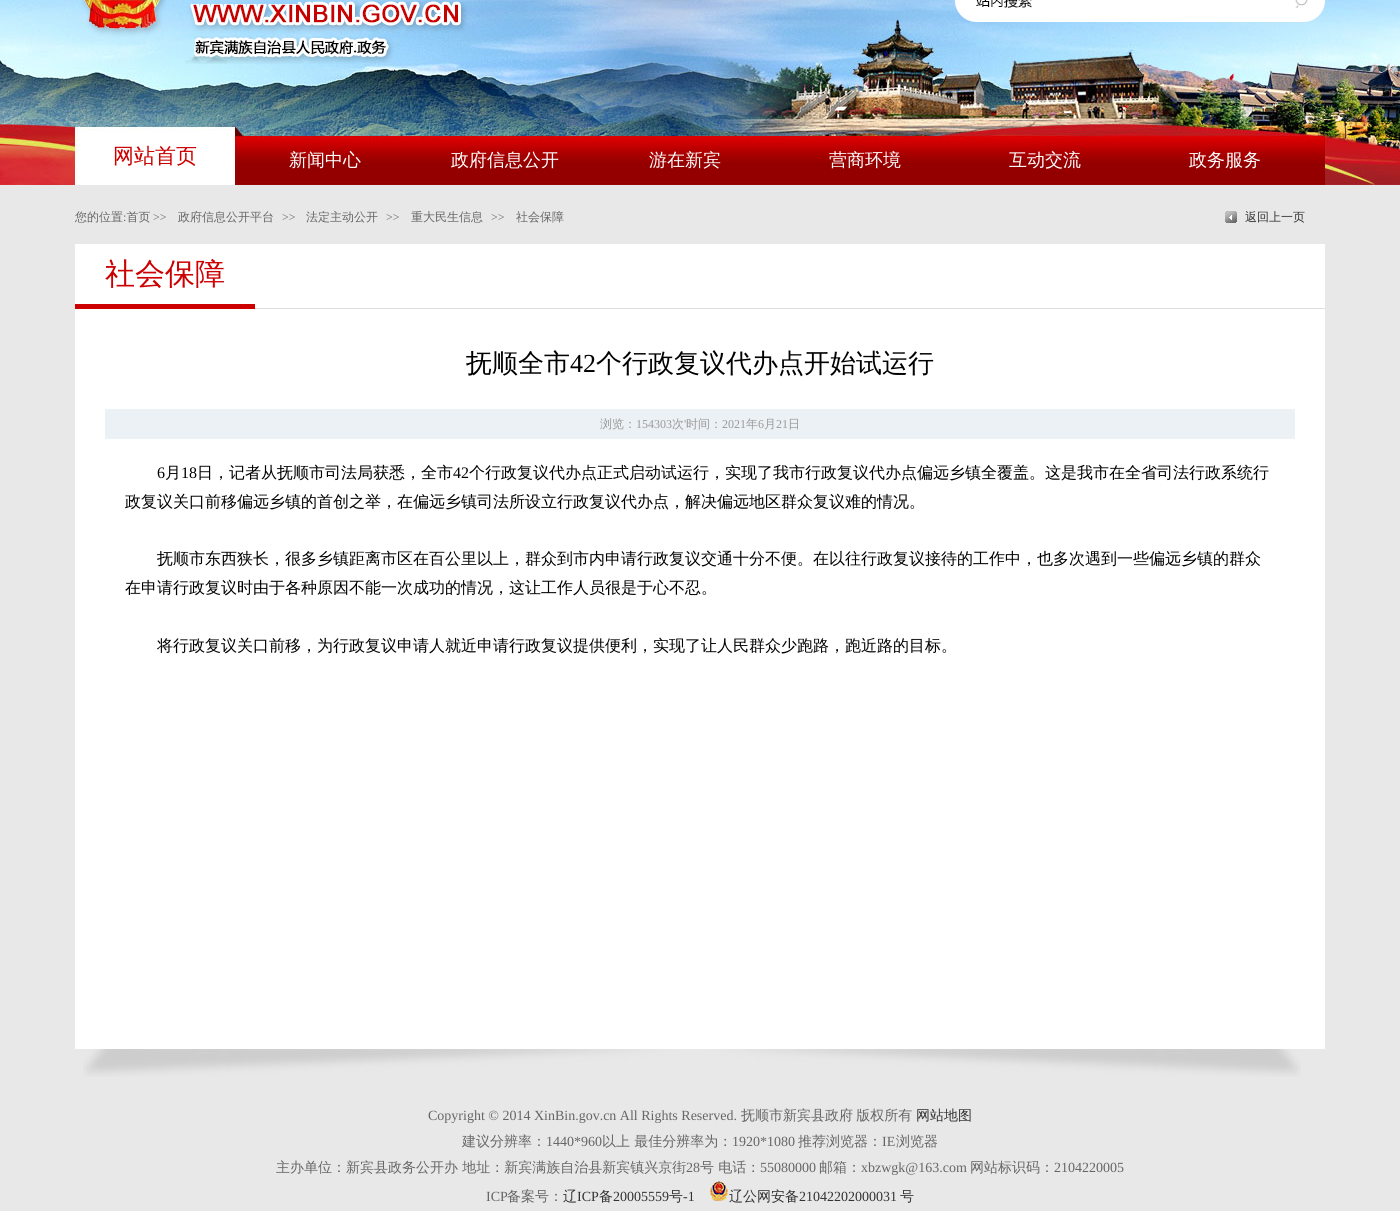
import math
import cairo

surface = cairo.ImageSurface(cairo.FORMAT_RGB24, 1400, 1211)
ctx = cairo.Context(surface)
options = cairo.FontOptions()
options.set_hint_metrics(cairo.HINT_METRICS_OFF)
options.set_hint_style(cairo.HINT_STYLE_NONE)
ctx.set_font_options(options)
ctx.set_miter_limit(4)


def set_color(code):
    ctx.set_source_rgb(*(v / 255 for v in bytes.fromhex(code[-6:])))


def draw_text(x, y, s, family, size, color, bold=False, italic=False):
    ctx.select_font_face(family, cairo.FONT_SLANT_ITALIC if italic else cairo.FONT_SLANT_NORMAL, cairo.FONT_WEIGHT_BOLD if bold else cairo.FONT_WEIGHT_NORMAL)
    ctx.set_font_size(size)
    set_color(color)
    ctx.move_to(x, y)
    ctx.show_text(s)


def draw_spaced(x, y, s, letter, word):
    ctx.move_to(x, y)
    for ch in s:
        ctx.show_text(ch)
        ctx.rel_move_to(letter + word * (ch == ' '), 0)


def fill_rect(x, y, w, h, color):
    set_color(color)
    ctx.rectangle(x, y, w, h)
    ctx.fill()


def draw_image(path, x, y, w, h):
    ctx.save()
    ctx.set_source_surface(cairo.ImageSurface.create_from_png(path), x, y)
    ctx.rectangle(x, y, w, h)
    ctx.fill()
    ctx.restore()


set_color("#e8e8e8")
ctx.paint()
draw_image("assets/img1.png", 0, 0, 1400, 185)
draw_image("assets/img2.png", 81, 0, 386, 64)
draw_image("assets/img3.png", 955, 0, 88, 22)
fill_rect(1043, 0, 237, 22, "#ffffff")
draw_image("assets/img4.png", 1280, 0, 45, 22)
draw_text(113, 163, "网站首页", "WenQuanYi Zen Hei Medium", 21, "#cc0000")
draw_text(289, 166, "新闻中心", "WenQuanYi Zen Hei Medium", 18, "#ffffff")
draw_text(451, 166, "政府信息公开", "WenQuanYi Zen Hei Medium", 18, "#ffffff")
draw_text(649, 166, "游在新宾", "WenQuanYi Zen Hei Medium", 18, "#ffffff")
draw_text(829, 166, "营商环境", "WenQuanYi Zen Hei Medium", 18, "#ffffff")
draw_text(1009, 166, "互动交流", "WenQuanYi Zen Hei Medium", 18, "#ffffff")
draw_text(1189, 166, "政务服务", "WenQuanYi Zen Hei Medium", 18, "#ffffff")
draw_text(75, 221, "您的位置 首页", "WenQuanYi Zen Hei Medium", 12, "#666666")
draw_text(153, 221, ">>", "Liberation Serif", 12, "#666666")
draw_text(178, 221, "政府信息公开平台", "WenQuanYi Zen Hei Medium", 12, "#666666")
draw_text(282, 221, ">>", "Liberation Serif", 12, "#666666")
draw_text(306, 221, "法定主动公开", "WenQuanYi Zen Hei Medium", 12, "#666666")
draw_text(386, 221, ">>", "Liberation Serif", 12, "#666666")
draw_text(411, 221, "重大民生信息", "WenQuanYi Zen Hei Medium", 12, "#666666")
draw_text(491, 221, ">>", "Liberation Serif", 12, "#666666")
draw_text(516, 221, "社会保障", "WenQuanYi Zen Hei Medium", 12, "#666666")
draw_text(123, 221, ":", "Liberation Serif", 12, "#666666")
draw_image("assets/img5.png", 1225, 211, 12, 12)
draw_text(1245, 221, "返回上一页", "WenQuanYi Zen Hei Medium", 12, "#333333")
fill_rect(75, 244, 1250, 805, "#ffffff")
fill_rect(255, 308, 1070, 1, "#dedede")
fill_rect(75, 304, 180, 5, "#cc0000")
draw_text(105, 284, "社会保障", "WenQuanYi Zen Hei Medium", 30, "#cc0000")
draw_text(466, 372, "抚顺全市", "WenQuanYi Zen Hei Medium", 26, "#000000")
draw_text(570, 372, "42", "Liberation Serif", 26, "#000000")
draw_text(596, 372, "个行政复议代办点开始试运行", "WenQuanYi Zen Hei Medium", 26, "#000000")
fill_rect(105, 409, 1190, 30, "#ecf1f6")
draw_text(600, 428, "浏览：", "WenQuanYi Zen Hei Medium", 12, "#999999")
draw_text(636, 428, "154303", "Liberation Serif", 12, "#999999")
draw_text(672, 428, "次", "WenQuanYi Zen Hei Medium", 12, "#999999")
draw_text(684, 428, "'", "Liberation Serif", 12, "#999999")
draw_text(686, 428, "时间：", "WenQuanYi Zen Hei Medium", 12, "#999999")
draw_text(722, 428, "2021", "Liberation Serif", 12, "#999999")
draw_text(746, 428, "年", "WenQuanYi Zen Hei Medium", 12, "#999999")
draw_text(758, 428, "6", "Liberation Serif", 12, "#999999")
draw_text(764, 428, "月", "WenQuanYi Zen Hei Medium", 12, "#999999")
draw_text(776, 428, "21", "Liberation Serif", 12, "#999999")
draw_text(788, 428, "日", "WenQuanYi Zen Hei Medium", 12, "#999999")
draw_text(157, 478, "6", "Liberation Serif", 16, "#000000")
draw_text(165, 478, "月", "WenQuanYi Zen Hei Medium", 16, "#000000")
draw_text(181, 478, "18", "Liberation Serif", 16, "#000000")
draw_text(197, 478, "日，记者从抚顺市司法局获悉，全市", "WenQuanYi Zen Hei Medium", 16, "#000000")
draw_text(453, 478, "42", "Liberation Serif", 16, "#000000")
draw_text(469, 478, "个行政复议代办点正式启动试运行，实现了我市行政复议代办点偏远乡镇全覆盖。这是我市在全省司法行政系统行", "WenQuanYi Zen Hei Medium", 16, "#000000")
draw_text(125, 507, "政复议关口前移偏远乡镇的首创之举，在偏远乡镇司法所设立行政复议代办点，解决偏远地区群众复议难的情况。", "WenQuanYi Zen Hei Medium", 16, "#000000")
draw_text(157, 564, "抚顺市东西狭长，很多乡镇距离市区在百公里以上，群众到市内申请行政复议交通十分不便。在以往行政复议接待的工作中，也多次遇到一些偏远乡镇的群众", "WenQuanYi Zen Hei Medium", 16, "#000000")
draw_text(125, 593, "在申请行政复议时由于各种原因不能一次成功的情况，这让工作人员很是于心不忍。", "WenQuanYi Zen Hei Medium", 16, "#000000")
draw_text(157, 651, "将行政复议关口前移，为行政复议申请人就近申请行政复议提供便利，实现了让人民群众少跑路，跑近路的目标。", "WenQuanYi Zen Hei Medium", 16, "#000000")
draw_image("assets/img6.png", 83, 1049, 1218, 28)
draw_text(428, 1120, "Copyright © 2014 XinBin.gov.cn All Rights Reserved.", "Liberation Serif", 14, "#666666")
ctx.select_font_face("WenQuanYi Zen Hei Medium")
draw_spaced(741, 1120, "抚顺市新宾县政府 版权所有", 0, -1)
draw_text(916, 1120, "网站地图", "WenQuanYi Zen Hei Medium", 14, "#333333")
draw_text(462, 1146, "建议分辨率：", "WenQuanYi Zen Hei Medium", 14, "#666666")
draw_text(546, 1146, "1440*960", "Liberation Serif", 14, "#666666")
draw_text(602, 1146, "以上 最佳分辨率为：", "WenQuanYi Zen Hei Medium", 14, "#666666")
draw_text(732, 1146, "1920*1080", "Liberation Serif", 14, "#666666")
draw_text(798, 1146, "推荐浏览器：", "WenQuanYi Zen Hei Medium", 14, "#666666")
draw_text(882, 1146, "IE", "Liberation Serif", 14, "#666666")
draw_text(896, 1146, "浏览器", "WenQuanYi Zen Hei Medium", 14, "#666666")
draw_text(276, 1172, "主办单位：新宾县政务公开办 地址：新宾满族自治县新宾镇兴京街", "WenQuanYi Zen Hei Medium", 14, "#666666")
draw_text(686, 1172, "28", "Liberation Serif", 14, "#666666")
draw_text(700, 1172, "号 电话：", "WenQuanYi Zen Hei Medium", 14, "#666666")
draw_text(760, 1172, "55080000", "Liberation Serif", 14, "#666666")
draw_text(819, 1172, "邮箱：", "WenQuanYi Zen Hei Medium", 14, "#666666")
draw_text(861, 1172, "xbzwgk@163.com", "Liberation Serif", 14, "#666666")
draw_text(970, 1172, "网站标识码：", "WenQuanYi Zen Hei Medium", 14, "#666666")
draw_text(1054, 1172, "2104220005", "Liberation Serif", 14, "#666666")
draw_text(486, 1201, "ICP", "Liberation Serif", 14, "#666666")
draw_text(507, 1201, "备案号：", "WenQuanYi Zen Hei Medium", 14, "#666666")
draw_text(563, 1201, "辽", "WenQuanYi Zen Hei Medium", 14, "#333333")
draw_text(577, 1201, "ICP", "Liberation Serif", 14, "#333333")
draw_text(599, 1201, "备", "WenQuanYi Zen Hei Medium", 14, "#333333")
draw_text(613, 1201, "20005559", "Liberation Serif", 14, "#333333")
draw_text(669, 1201, "号", "WenQuanYi Zen Hei Medium", 14, "#333333")
draw_text(683, 1201, "-1", "Liberation Serif", 14, "#333333")
draw_image("assets/img7.png", 710, 1181, 18, 20)
draw_text(729, 1201, "辽公网安备", "WenQuanYi Zen Hei Medium", 14, "#333333")
draw_text(799, 1201, "21042202000031", "Liberation Serif", 14, "#333333")
draw_text(900, 1201, "号", "WenQuanYi Zen Hei Medium", 14, "#333333")
surface.write_to_png("output.png")
